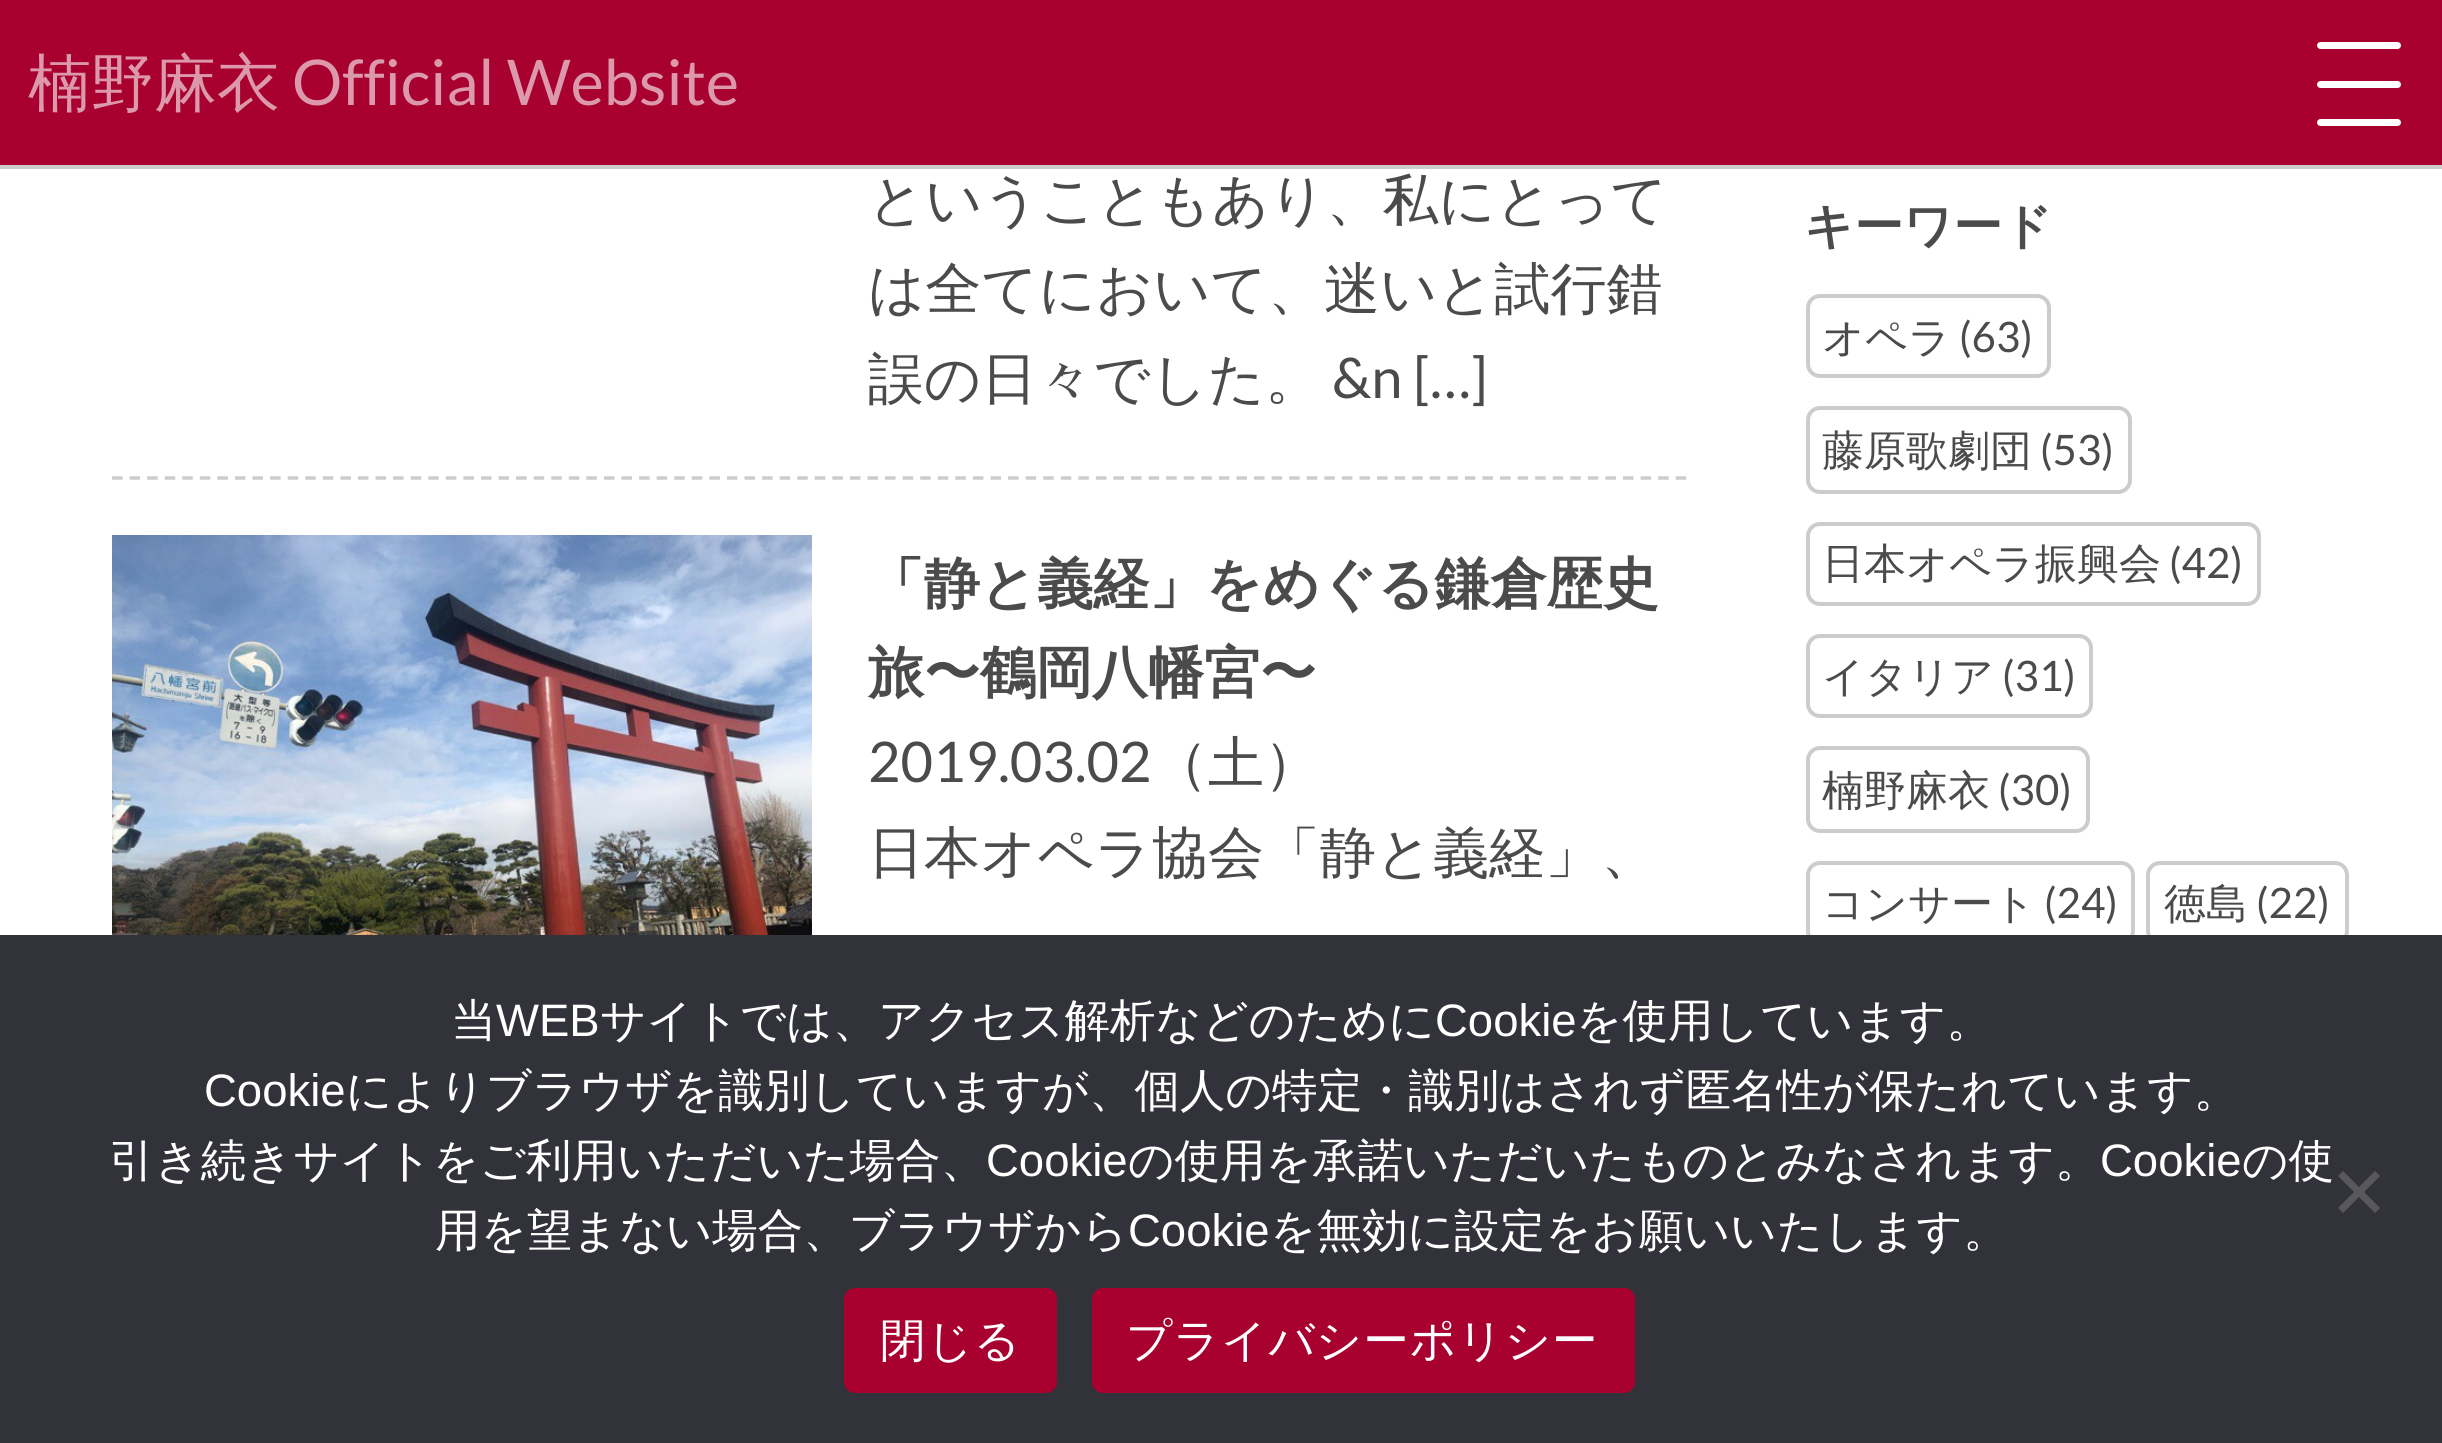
import math
import cairo

surface = cairo.ImageSurface(cairo.FORMAT_RGB24, 2442, 1443)
ctx = cairo.Context(surface)
options = cairo.FontOptions()
options.set_hint_metrics(cairo.HINT_METRICS_OFF)
options.set_hint_style(cairo.HINT_STYLE_NONE)
ctx.set_font_options(options)
ctx.set_miter_limit(4)


def set_color(code):
    ctx.set_source_rgb(*(v / 255 for v in bytes.fromhex(code[-6:])))


def draw_text(x, y, s, family, size, color, bold=False, italic=False):
    ctx.select_font_face(family, cairo.FONT_SLANT_ITALIC if italic else cairo.FONT_SLANT_NORMAL, cairo.FONT_WEIGHT_BOLD if bold else cairo.FONT_WEIGHT_NORMAL)
    ctx.set_font_size(size)
    set_color(color)
    ctx.move_to(x, y)
    ctx.show_text(s)


def draw_spaced(x, y, s, letter, word):
    ctx.move_to(x, y)
    for ch in s:
        ctx.show_text(ch)
        ctx.rel_move_to(letter + word * (ch == ' '), 0)


def fill_rect(x, y, w, h, color):
    set_color(color)
    ctx.rectangle(x, y, w, h)
    ctx.fill()


def rounded_rect(x, y, w, h, r):
    ctx.new_sub_path()
    for i, (u, v) in enumerate([(x + w - r, y + h - r), (x + r, y + h - r), (x + r, y + r), (x + w - r, y + r)]):
        ctx.arc(u, v, r, i * math.pi / 2, (i + 1) * math.pi / 2)
    ctx.close_path()


def draw_image(path, x, y, w, h):
    ctx.save()
    ctx.set_source_surface(cairo.ImageSurface.create_from_png(path), x, y)
    ctx.rectangle(x, y, w, h)
    ctx.fill()
    ctx.restore()


set_color("#ffffff")
ctx.paint()
fill_rect(0, 0, 2442, 165, "#a8002f")
fill_rect(0, 165, 2442, 4, "#cccccc")
draw_text(28, 105, "楠野麻衣", "WenQuanYi Zen Hei Medium", 63, "#dc99ac")
draw_text(292, 105, "Official Website", "Lato", 63, "#dc99ac")
set_color("#ffffff")
rounded_rect(2317, 42, 84, 7, 3.5)
ctx.fill()
rounded_rect(2317, 81, 84, 7, 3.5)
ctx.fill()
rounded_rect(2317, 119, 84, 7, 3.5)
ctx.fill()
ctx.new_path()
ctx.move_to(112, 478)
ctx.line_to(1687, 478)
set_color("#cccccc")
ctx.set_line_width(3.5)
ctx.set_dash([10.5, 7.07])
ctx.stroke()
draw_text(868, 219, "ということもあり、私にとって", "WenQuanYi Zen Hei Medium", 56, "#4b4b4b")
draw_text(868, 308, "は全てにおいて、迷いと試行錯", "WenQuanYi Zen Hei Medium", 56, "#4b4b4b")
draw_text(868, 398, "誤の日々でした。", "WenQuanYi Zen Hei Medium", 56, "#4b4b4b")
draw_text(1332, 398, "&n […]", "Lato", 56, "#4b4b4b")
draw_image("assets/img1.png", 112, 535, 700, 400)
draw_text(868, 603, "「静と義経」をめぐる鎌倉歴史", "WenQuanYi Zen Hei", 56, "#4b4b4b", bold=True)
draw_text(868, 692, "旅〜鶴岡八幡宮〜", "WenQuanYi Zen Hei", 56, "#4b4b4b", bold=True)
draw_text(868, 782, "2019.03.02", "Lato", 56, "#4b4b4b")
draw_text(1152, 782, "（土）", "WenQuanYi Zen Hei Medium", 56, "#4b4b4b")
draw_text(868, 872, "日本オペラ協会「静と義経」、", "WenQuanYi Zen Hei Medium", 56, "#4b4b4b")
draw_text(1804, 243, "キーワード", "WenQuanYi Zen Hei", 49, "#4b4b4b", bold=True)
rounded_rect(1808, 296, 241, 80, 12)
set_color("#cccccc")
ctx.set_line_width(4)
ctx.set_dash([])
ctx.stroke()
draw_text(1822, 352, "オペラ", "WenQuanYi Zen Hei Medium", 42, "#4b4b4b")
draw_text(1959, 352, "(63)", "Lato", 42, "#4b4b4b")
rounded_rect(1808, 408, 322, 84, 12)
set_color("#cccccc")
ctx.stroke()
draw_text(1822, 465, "藤原歌劇団", "WenQuanYi Zen Hei Medium", 42, "#4b4b4b")
draw_text(2040, 465, "(53)", "Lato", 42, "#4b4b4b")
rounded_rect(1808, 524, 451, 80, 12)
set_color("#cccccc")
ctx.stroke()
draw_text(1822, 578, "日本オペラ振興会", "WenQuanYi Zen Hei Medium", 42, "#4b4b4b")
draw_text(2169, 578, "(42)", "Lato", 42, "#4b4b4b")
rounded_rect(1808, 636, 283, 80, 12)
set_color("#cccccc")
ctx.stroke()
draw_text(1822, 691, "イタリア", "WenQuanYi Zen Hei Medium", 42, "#4b4b4b")
draw_text(2002, 691, "(31)", "Lato", 42, "#4b4b4b")
rounded_rect(1808, 748, 280, 83, 12)
set_color("#cccccc")
ctx.stroke()
draw_text(1822, 805, "楠野麻衣", "WenQuanYi Zen Hei Medium", 42, "#4b4b4b")
draw_text(1998, 805, "(30)", "Lato", 42, "#4b4b4b")
rounded_rect(1808, 863, 325, 80, 12)
set_color("#cccccc")
ctx.stroke()
draw_text(1822, 918, "コンサート", "WenQuanYi Zen Hei Medium", 42, "#4b4b4b")
draw_text(2044, 918, "(24)", "Lato", 42, "#4b4b4b")
rounded_rect(2148, 863, 199, 80, 12)
set_color("#cccccc")
ctx.stroke()
draw_text(2164, 918, "徳島", "WenQuanYi Zen Hei Medium", 42, "#4b4b4b")
draw_text(2256, 918, "(22)", "Lato", 42, "#4b4b4b")
fill_rect(0, 935, 2442, 508, "#32323a")
draw_text(451, 1036, "当", "WenQuanYi Zen Hei Medium", 45.5, "#ffffff")
draw_text(496, 1036, "WEB", "Liberation Sans", 45.5, "#ffffff")
draw_text(600, 1036, "サイトでは、アクセス解析などのために", "WenQuanYi Zen Hei Medium", 45.5, "#ffffff")
draw_text(1435, 1036, "Cookie", "Liberation Sans", 45.5, "#ffffff")
draw_text(1576, 1036, "を使用しています。", "WenQuanYi Zen Hei Medium", 45.5, "#ffffff")
draw_text(204, 1106, "Cookie", "Liberation Sans", 45.5, "#ffffff")
draw_text(346, 1106, "によりブラウザを識別していますが、個人の特定・識別はされず匿名性が保たれています。", "WenQuanYi Zen Hei Medium", 45.5, "#ffffff")
draw_text(109, 1176, "引き続きサイトをご利用いただいた場合、", "WenQuanYi Zen Hei Medium", 45.5, "#ffffff")
draw_text(986, 1176, "Cookie", "Liberation Sans", 45.5, "#ffffff")
draw_text(1128, 1176, "の使用を承諾いただいたものとみなされます。", "WenQuanYi Zen Hei Medium", 45.5, "#ffffff")
draw_text(2100, 1176, "Cookie", "Liberation Sans", 45.5, "#ffffff")
draw_text(2242, 1176, "の使", "WenQuanYi Zen Hei Medium", 45.5, "#ffffff")
draw_text(435, 1246, "用を望まない場合、ブラウザから", "WenQuanYi Zen Hei Medium", 45.5, "#ffffff")
draw_text(1128, 1246, "Cookie", "Liberation Sans", 45.5, "#ffffff")
draw_text(1270, 1246, "を無効に設定をお願いいたします。", "WenQuanYi Zen Hei Medium", 45.5, "#ffffff")
set_color("#59595d")
ctx.new_path()
ctx.move_to(2375, 1171)
ctx.line_to(2380, 1176)
ctx.line_to(2343, 1213)
ctx.line_to(2338, 1208)
ctx.close_path()
ctx.fill()
ctx.new_path()
ctx.move_to(2338, 1176)
ctx.line_to(2343, 1171)
ctx.line_to(2380, 1208)
ctx.line_to(2375, 1213)
ctx.close_path()
ctx.fill()
set_color("#a8002f")
rounded_rect(844, 1288, 213, 105, 11)
ctx.fill()
set_color("#ffffff")
draw_spaced(880, 1356, "閉じる", 0.9, 0)
set_color("#a8002f")
rounded_rect(1092, 1288, 543, 105, 11)
ctx.fill()
set_color("#ffffff")
draw_spaced(1126, 1356, "プライバシーポリシー", 0.9, 0)
surface.write_to_png("output.png")
